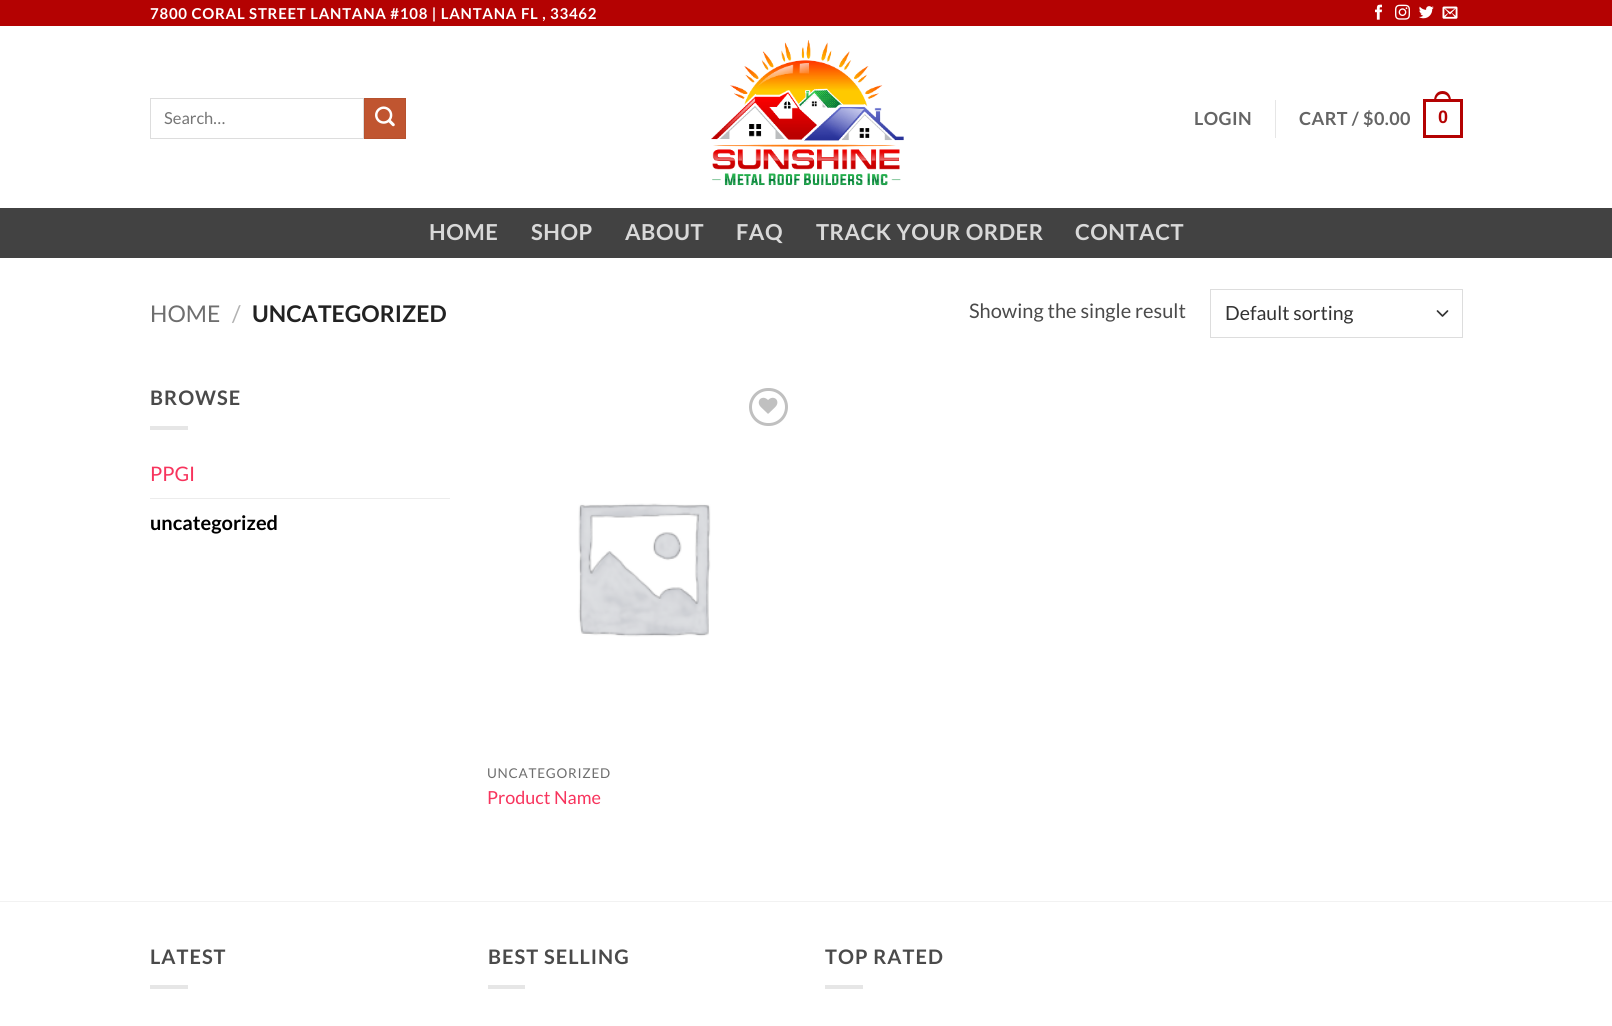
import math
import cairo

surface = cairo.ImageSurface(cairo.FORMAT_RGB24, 1612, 1026)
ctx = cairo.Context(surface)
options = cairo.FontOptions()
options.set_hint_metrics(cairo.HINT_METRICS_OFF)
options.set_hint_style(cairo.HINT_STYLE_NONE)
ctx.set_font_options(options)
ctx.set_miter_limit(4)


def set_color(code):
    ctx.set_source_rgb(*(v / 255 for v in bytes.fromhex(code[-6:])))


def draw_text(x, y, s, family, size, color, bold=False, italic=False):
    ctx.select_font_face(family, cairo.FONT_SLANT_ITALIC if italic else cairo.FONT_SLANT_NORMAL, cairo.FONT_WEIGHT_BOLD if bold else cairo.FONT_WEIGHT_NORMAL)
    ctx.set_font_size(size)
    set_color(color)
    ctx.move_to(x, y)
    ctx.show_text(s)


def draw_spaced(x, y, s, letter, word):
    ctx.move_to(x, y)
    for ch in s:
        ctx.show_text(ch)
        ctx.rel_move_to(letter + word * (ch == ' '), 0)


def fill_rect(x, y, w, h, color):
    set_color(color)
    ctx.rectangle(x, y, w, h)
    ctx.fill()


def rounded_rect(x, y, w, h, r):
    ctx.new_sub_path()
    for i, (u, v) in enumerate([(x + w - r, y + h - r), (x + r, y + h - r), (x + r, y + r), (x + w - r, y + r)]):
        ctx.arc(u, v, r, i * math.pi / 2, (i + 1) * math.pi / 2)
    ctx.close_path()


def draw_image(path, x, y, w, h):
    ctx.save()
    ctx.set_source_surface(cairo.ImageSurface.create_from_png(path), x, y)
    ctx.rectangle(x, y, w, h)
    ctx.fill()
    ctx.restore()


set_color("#ffffff")
ctx.paint()
fill_rect(0, 0, 1612, 26, "#b40202")
ctx.select_font_face("Lato", cairo.FONT_SLANT_NORMAL, cairo.FONT_WEIGHT_BOLD)
ctx.set_font_size(15)
set_color("#ffffff")
draw_spaced(150, 19, "7800 CORAL STREET LANTANA #108 | LANTANA FL , 33462", 0.75, 0)
draw_image("assets/img1.png", 1375, 4, 7, 16)
draw_image("assets/img2.png", 1395, 4, 15, 16)
draw_image("assets/img3.png", 1419, 6, 15, 13)
draw_image("assets/img4.png", 1442, 6, 16, 13)
ctx.rectangle(150.5, 98.5, 213, 40)
set_color("#dddddd")
ctx.set_line_width(1)
ctx.stroke()
draw_text(164, 124, "Search…", "Lato", 16.5, "#757575")
set_color("#c05530")
ctx.rectangle(364.5, 98.5, 41, 40)
ctx.fill_preserve()
set_color("#b6512e")
ctx.stroke()
draw_image("assets/img5.png", 375, 106, 20, 21)
draw_image("assets/img6.png", 711, 40, 193, 146)
ctx.select_font_face("Lato", cairo.FONT_SLANT_NORMAL, cairo.FONT_WEIGHT_BOLD)
ctx.set_font_size(18)
set_color("#656565")
draw_spaced(1194, 125, "LOGIN", 0.4, 0)
fill_rect(1275, 100, 1, 38, "#e6e6e6")
set_color("#656565")
draw_spaced(1299, 125, "CART / $0.00", 0.4, 0)
ctx.rectangle(1424.5, 100.5, 37, 36)
set_color("#b40202")
ctx.set_line_width(3)
ctx.stroke()
ctx.set_fill_rule(cairo.FILL_RULE_EVEN_ODD)
ctx.new_path()
ctx.move_to(1442.5, 91)
ctx.curve_to(1448.5, 91, 1451, 96, 1451, 101)
ctx.line_to(1434, 101)
ctx.curve_to(1434, 96, 1436.5, 91, 1442.5, 91)
ctx.close_path()
ctx.move_to(1442.5, 94)
ctx.curve_to(1447, 94, 1449, 97.5, 1449, 101)
ctx.line_to(1436, 101)
ctx.curve_to(1436, 97.5, 1438, 94, 1442.5, 94)
ctx.close_path()
ctx.fill()
ctx.select_font_face("Liberation Sans", cairo.FONT_SLANT_NORMAL, cairo.FONT_WEIGHT_BOLD)
draw_spaced(1438, 123, "0", 0.4, 0)
fill_rect(0, 208, 1612, 50, "#424242")
ctx.select_font_face("Lato", cairo.FONT_SLANT_NORMAL, cairo.FONT_WEIGHT_BOLD)
ctx.set_font_size(22)
set_color("#d9d9d9")
draw_spaced(429, 240, "HOME", 0.5, 0)
draw_spaced(531, 240, "SHOP", 0.5, 0)
draw_spaced(625, 240, "ABOUT", 0.5, 0)
draw_spaced(736, 240, "FAQ", 0.5, 0)
draw_spaced(816, 240, "TRACK YOUR ORDER", 0.5, 0)
draw_spaced(1075, 240, "CONTACT", 0.5, 0)
draw_text(150, 322, "HOME", "Lato", 23, "#6e6e6e")
draw_text(232, 322, "/", "Lato", 23, "#b2b2b2")
draw_text(252, 322, "UNCATEGORIZED", "Lato", 23, "#222222", bold=True)
draw_text(969, 318, "Showing the single result", "Lato", 20, "#4a4a4a")
ctx.new_path()
ctx.move_to(1437.5, 311)
ctx.line_to(1442.5, 316)
ctx.line_to(1447.5, 311)
set_color("#333333")
ctx.set_line_width(1.7)
ctx.set_line_cap(cairo.LINE_CAP_ROUND)
ctx.set_line_join(cairo.LINE_JOIN_ROUND)
ctx.stroke()
ctx.rectangle(1210.5, 289.5, 252, 48)
set_color("#dddddd")
ctx.set_line_width(1)
ctx.set_line_cap(cairo.LINE_CAP_BUTT)
ctx.set_line_join(cairo.LINE_JOIN_MITER)
ctx.stroke()
draw_text(1225, 320, "Default sorting", "Lato", 19.5, "#333333")
ctx.select_font_face("Lato", cairo.FONT_SLANT_NORMAL, cairo.FONT_WEIGHT_BOLD)
ctx.set_font_size(20)
set_color("#4a4a4a")
draw_spaced(150, 405, "BROWSE", 1, 0)
fill_rect(150, 426, 38, 4, "#e6e6e6")
draw_text(150, 481, "PPGI", "Lato", 20, "#f7345d")
fill_rect(150, 498, 300, 1, "#ececec")
draw_text(150, 530, "uncategorized", "Lato", 20, "#000000", bold=True)
rounded_rect(750.5, 389.5, 36, 35, 17.5)
set_color("#c0c0c0")
ctx.set_line_width(3)
ctx.stroke()
draw_image("assets/img7.png", 758, 397, 20, 17)
draw_image("assets/img8.png", 578, 503, 133, 134)
ctx.select_font_face("Lato")
ctx.set_font_size(13.5)
set_color("#6e6e6e")
draw_spaced(487, 778, "UNCATEGORIZED", 0.75, 0)
draw_text(487, 804, "Product Name", "Lato", 18, "#f7345d")
fill_rect(0, 901, 1612, 1, "#f2f2f2")
ctx.select_font_face("Lato", cairo.FONT_SLANT_NORMAL, cairo.FONT_WEIGHT_BOLD)
ctx.set_font_size(20)
set_color("#4a4a4a")
draw_spaced(150, 964, "LATEST", 1, 0)
fill_rect(150, 985, 38, 4, "#e6e6e6")
set_color("#4a4a4a")
draw_spaced(488, 964, "BEST SELLING", 1, 0)
fill_rect(488, 985, 37, 4, "#e6e6e6")
set_color("#4a4a4a")
draw_spaced(825, 964, "TOP RATED", 1, 0)
fill_rect(825, 985, 38, 4, "#e6e6e6")
surface.write_to_png("output.png")
